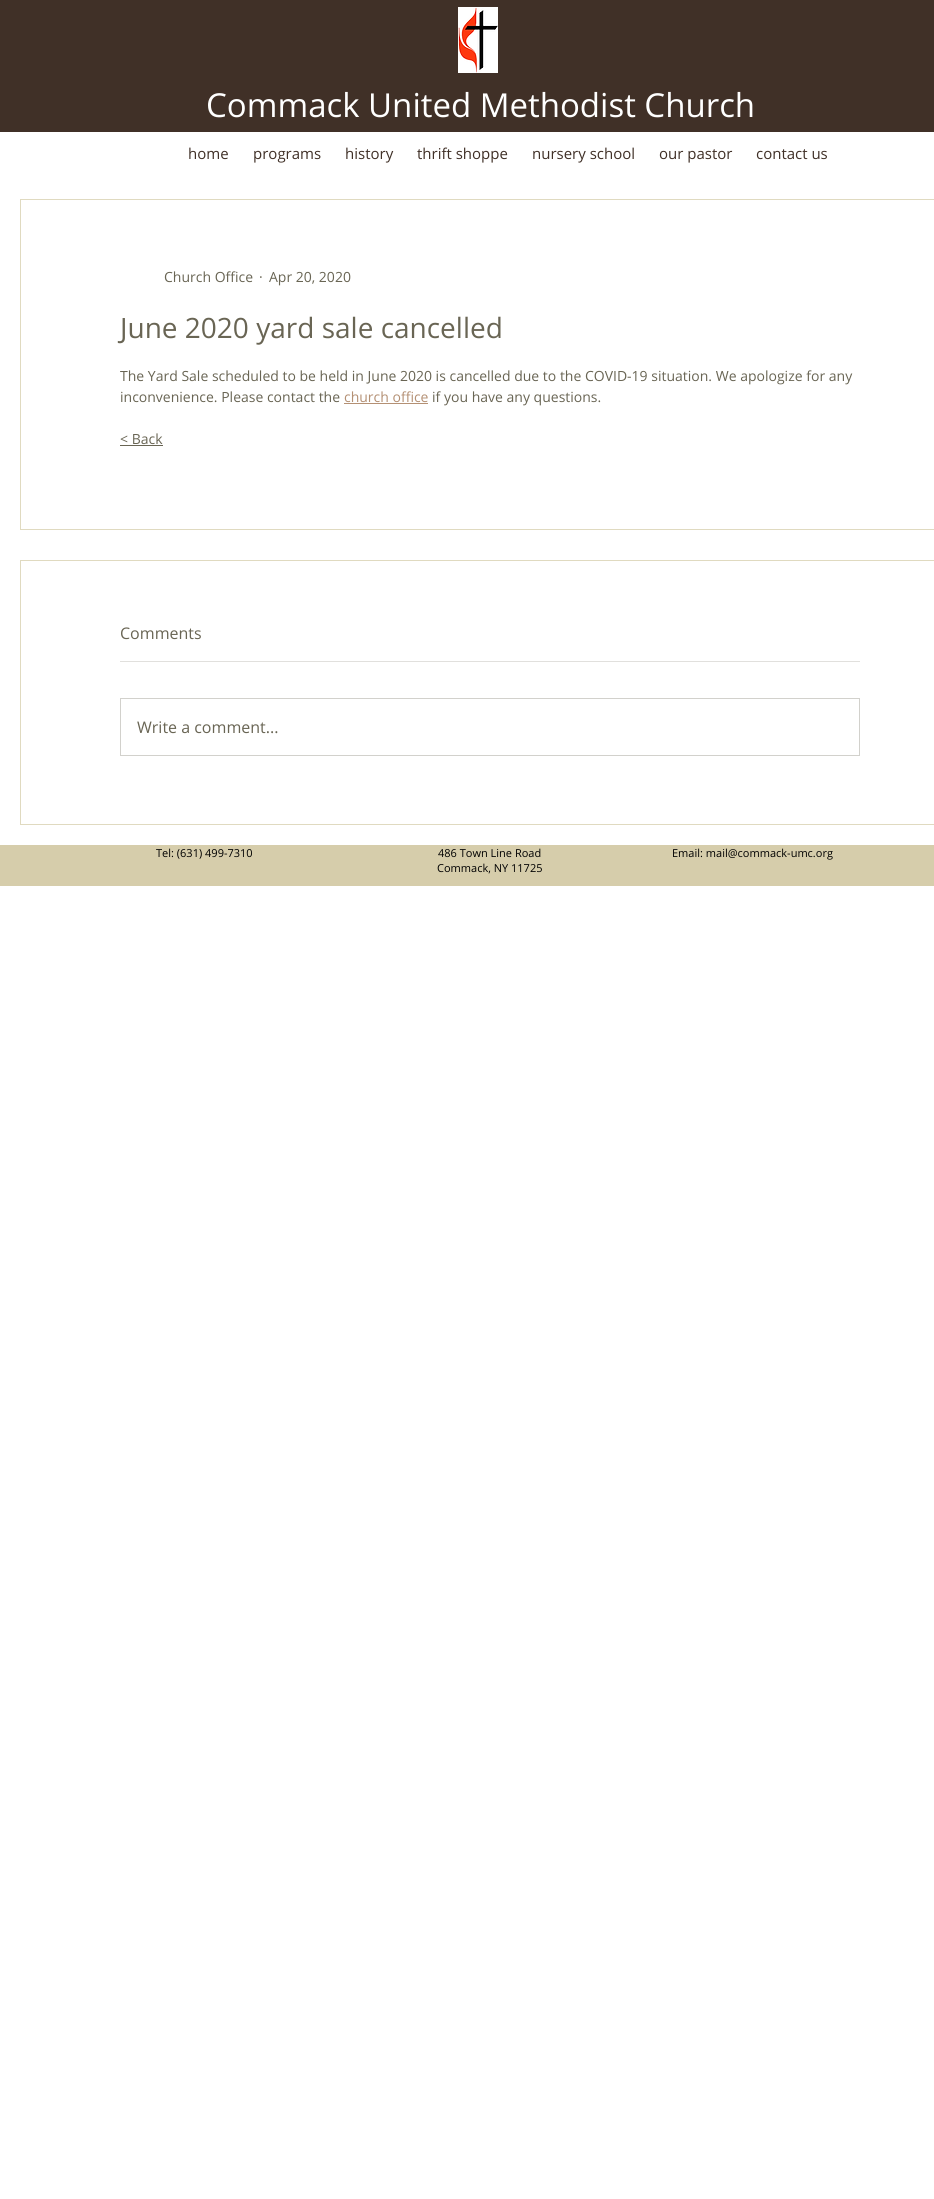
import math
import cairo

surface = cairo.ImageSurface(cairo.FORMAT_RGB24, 934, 2199)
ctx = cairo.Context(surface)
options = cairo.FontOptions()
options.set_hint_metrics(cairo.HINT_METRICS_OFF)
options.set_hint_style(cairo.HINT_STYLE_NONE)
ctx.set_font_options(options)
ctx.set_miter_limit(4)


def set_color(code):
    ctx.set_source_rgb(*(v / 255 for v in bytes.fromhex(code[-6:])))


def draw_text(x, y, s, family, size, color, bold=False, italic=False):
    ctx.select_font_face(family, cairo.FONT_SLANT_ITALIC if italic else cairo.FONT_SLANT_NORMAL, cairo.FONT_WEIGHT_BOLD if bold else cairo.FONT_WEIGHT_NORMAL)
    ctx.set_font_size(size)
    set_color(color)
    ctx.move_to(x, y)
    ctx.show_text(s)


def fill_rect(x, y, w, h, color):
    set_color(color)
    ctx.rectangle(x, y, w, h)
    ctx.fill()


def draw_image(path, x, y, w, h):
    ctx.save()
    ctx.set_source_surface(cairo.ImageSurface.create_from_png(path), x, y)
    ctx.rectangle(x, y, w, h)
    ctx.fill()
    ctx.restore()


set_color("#ffffff")
ctx.paint()
fill_rect(0, 0, 934, 132, "#403027")
draw_image("assets/img1.png", 458, 7, 40, 66)
draw_text(206, 117, "Commack United Methodist Church", "Open Sans", 33, "#ffffff")
draw_text(188, 159, "home", "Open Sans", 15, "#403027")
draw_text(253, 159, "programs", "Open Sans", 15, "#403027")
draw_text(345, 159, "history", "Open Sans", 15, "#403027")
draw_text(417, 159, "thrift shoppe", "Open Sans", 15, "#403027")
draw_text(532, 159, "nursery school", "Open Sans", 15, "#403027")
draw_text(659, 159, "our pastor", "Open Sans", 15, "#403027")
draw_text(756, 159, "contact us", "Open Sans", 15, "#403027")
ctx.rectangle(20.5, 199.5, 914, 330)
set_color("#e0dac0")
ctx.set_line_width(1)
ctx.stroke()
draw_text(164, 282, "Church Office", "Open Sans", 14, "#696554")
draw_text(259, 282, "·", "Open Sans", 14, "#696554")
draw_text(269, 282, "Apr 20, 2020", "Open Sans", 14, "#696554")
draw_text(120, 338, "June 2020 yard sale cancelled", "Open Sans", 28, "#696554")
draw_text(120, 381, "The Yard Sale scheduled to be held in June 2020 is cancelled due to the COVID-19 situation. We apologize for any", "Open Sans", 14, "#696554")
draw_text(120, 402, "inconvenience. Please contact the", "Open Sans", 14, "#696554")
draw_text(344, 402, "church office", "Open Sans", 14, "#b49074")
fill_rect(344, 403, 84, 1, "#b49074")
draw_text(432, 402, "if you have any questions.", "Open Sans", 14, "#696554")
draw_text(120, 444, "< Back", "Open Sans", 14, "#696554")
fill_rect(120, 445, 43, 1, "#696554")
ctx.rectangle(20.5, 560.5, 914, 264)
set_color("#e0dac0")
ctx.stroke()
draw_text(120, 639, "Comments", "Open Sans", 16, "#696554")
fill_rect(120, 661, 740, 1, "#e1e0dd")
ctx.rectangle(120.5, 698.5, 739, 57)
set_color("#d2d1cc")
ctx.stroke()
draw_text(137, 733, "Write a comment...", "Open Sans", 16, "#696554")
fill_rect(0, 845, 934, 41, "#d6cdab")
draw_text(156, 857, "Tel: (631) 499-7310", "Open Sans", 11, "#000000")
draw_text(438, 857, "486 Town Line Road", "Open Sans", 11, "#000000")
draw_text(437, 872, "Commack, NY 11725", "Open Sans", 11, "#000000")
draw_text(672, 857, "Email: mail@commack-umc.org", "Open Sans", 11, "#000000")
surface.write_to_png("output.png")
